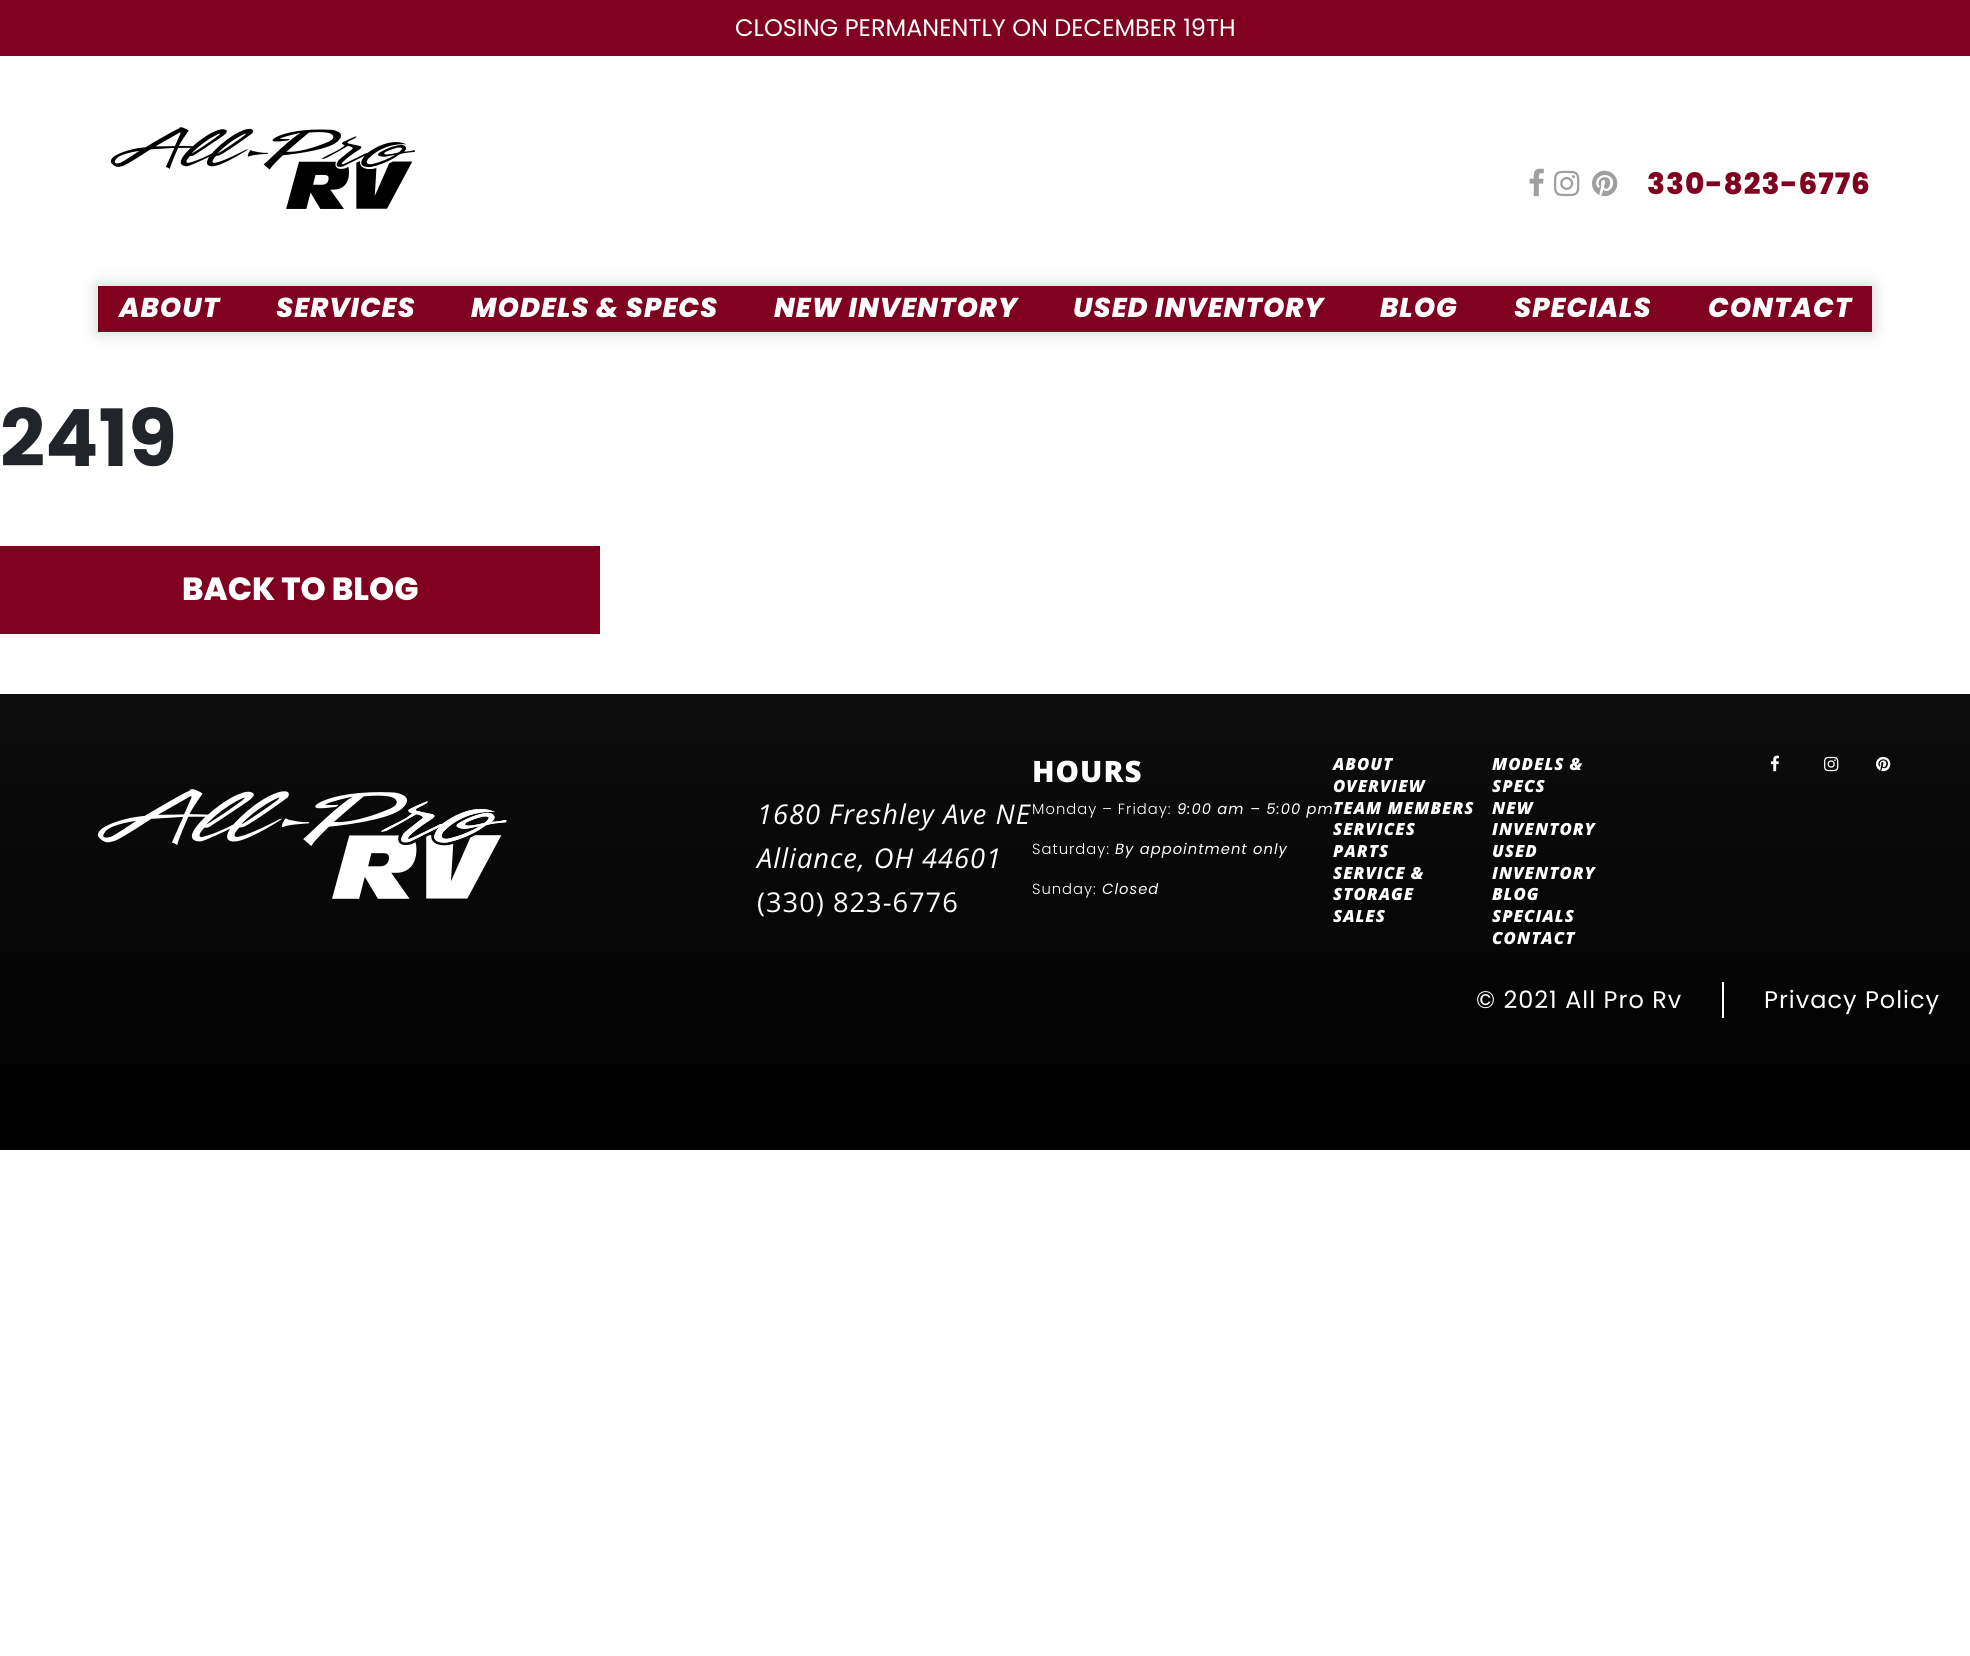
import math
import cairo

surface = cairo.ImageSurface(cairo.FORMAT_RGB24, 1970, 1656)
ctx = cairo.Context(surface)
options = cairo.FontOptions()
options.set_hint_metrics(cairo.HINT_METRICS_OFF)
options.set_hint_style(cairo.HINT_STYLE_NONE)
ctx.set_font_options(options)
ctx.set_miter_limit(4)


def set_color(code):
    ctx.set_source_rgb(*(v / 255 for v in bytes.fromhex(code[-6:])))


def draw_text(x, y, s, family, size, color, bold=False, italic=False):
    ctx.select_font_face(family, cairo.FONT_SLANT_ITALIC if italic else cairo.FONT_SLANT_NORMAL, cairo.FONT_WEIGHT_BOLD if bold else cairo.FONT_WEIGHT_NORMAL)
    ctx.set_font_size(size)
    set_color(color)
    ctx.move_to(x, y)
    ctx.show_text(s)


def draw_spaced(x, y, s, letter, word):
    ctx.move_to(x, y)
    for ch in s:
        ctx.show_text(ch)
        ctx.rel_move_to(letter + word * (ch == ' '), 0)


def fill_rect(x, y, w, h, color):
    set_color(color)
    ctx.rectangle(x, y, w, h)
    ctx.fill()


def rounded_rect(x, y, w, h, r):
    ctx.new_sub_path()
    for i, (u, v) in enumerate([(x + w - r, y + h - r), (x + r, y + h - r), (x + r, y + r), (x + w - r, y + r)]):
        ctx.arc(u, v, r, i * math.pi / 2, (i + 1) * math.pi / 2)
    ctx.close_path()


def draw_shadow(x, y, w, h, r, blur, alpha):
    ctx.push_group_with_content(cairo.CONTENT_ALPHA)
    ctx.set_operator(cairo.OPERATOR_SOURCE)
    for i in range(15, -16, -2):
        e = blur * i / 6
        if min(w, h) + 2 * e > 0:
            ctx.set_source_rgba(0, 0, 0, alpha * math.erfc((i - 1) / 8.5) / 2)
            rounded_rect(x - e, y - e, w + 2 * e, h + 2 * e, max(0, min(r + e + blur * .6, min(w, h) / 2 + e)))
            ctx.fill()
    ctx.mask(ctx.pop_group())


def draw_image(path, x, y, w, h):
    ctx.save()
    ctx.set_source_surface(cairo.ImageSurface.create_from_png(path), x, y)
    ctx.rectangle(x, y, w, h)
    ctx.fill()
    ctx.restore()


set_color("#ffffff")
ctx.paint()
fill_rect(0, 0, 1970, 56, "#800020")
draw_text(735, 36, "CLOSING PERMANENTLY ON DECEMBER 19TH", "Poppins", 24, "#ffffff")
draw_image("assets/img1.png", 110, 127, 305, 82)
draw_image("assets/img2.png", 1529, 168, 15, 29)
draw_image("assets/img3.png", 1554, 170, 26, 27)
draw_image("assets/img4.png", 1592, 170, 26, 27)
ctx.select_font_face("Poppins ExtraBold")
ctx.set_font_size(29.5)
set_color("#800020")
draw_spaced(1647, 194, "330-823-6776", 1, 0)
set_color("#000000")
draw_shadow(98, 286, 1774, 46, 0, 8.5, 0.2)
fill_rect(98, 286, 1774, 46, "#800020")
ctx.select_font_face("Poppins ExtraBold", cairo.FONT_SLANT_ITALIC)
ctx.set_font_size(27.25)
set_color("#ffffff")
draw_spaced(119, 317, "ABOUT", 1, 0)
draw_spaced(276, 317, "SERVICES", 1, 0)
draw_spaced(471, 317, "MODELS & SPECS", 1, 0)
draw_spaced(774, 317, "NEW INVENTORY", 1, 0)
draw_spaced(1073, 317, "USED INVENTORY", 1, 0)
draw_spaced(1380, 317, "BLOG", 1, 0)
draw_spaced(1514, 317, "SPECIALS", 1, 0)
draw_spaced(1708, 317, "CONTACT", 1, 0)
draw_text(0, 466, "2419", "Poppins", 79, "#212529", bold=True)
fill_rect(0, 546, 600, 88, "#800020")
draw_text(182, 600, "BACK TO BLOG", "Poppins ExtraBold", 32, "#ffffff")
gradient = cairo.LinearGradient(985, 1150, 985, 694)
gradient.add_color_stop_rgba(0, 0, 0, 0, 1)
gradient.add_color_stop_rgba(1, 0.051, 0.051, 0.051, 1)
ctx.set_source(gradient)
ctx.rectangle(0, 694, 1970, 456)
ctx.fill()
draw_image("assets/img5.png", 98, 789, 409, 110)
ctx.select_font_face("Open Sans", cairo.FONT_SLANT_ITALIC)
ctx.set_font_size(27.25)
set_color("#ffffff")
draw_spaced(757, 824, "1680 Freshley Ave NE", 1, 0)
draw_spaced(757, 868, "Alliance, OH 44601", 1, 0)
ctx.select_font_face("Open Sans")
draw_spaced(757, 912, "(330) 823-6776", 1, 0)
ctx.select_font_face("Open Sans ExtraBold")
ctx.set_font_size(29.5)
draw_spaced(1032, 782, "HOURS", 1, 0)
ctx.select_font_face("Poppins Light")
ctx.set_font_size(14.75)
draw_spaced(1032, 814, "Monday – Friday:", 1, 0)
ctx.select_font_face("Poppins", cairo.FONT_SLANT_ITALIC)
draw_spaced(1177, 814, "9:00 am – 5:00 pm", 1, 0)
ctx.select_font_face("Poppins Light")
draw_spaced(1032, 854, "Saturday:", 1, 0)
ctx.select_font_face("Poppins", cairo.FONT_SLANT_ITALIC)
draw_spaced(1115, 854, "By appointment only", 1, 0)
ctx.select_font_face("Poppins Light")
draw_spaced(1032, 894, "Sunday:", 1, 0)
ctx.select_font_face("Poppins", cairo.FONT_SLANT_ITALIC)
draw_spaced(1102, 894, "Closed", 1, 0)
ctx.select_font_face("Open Sans ExtraBold", cairo.FONT_SLANT_ITALIC)
ctx.set_font_size(16.75)
draw_spaced(1333, 770, "ABOUT", 1, 0)
draw_spaced(1333, 792, "OVERVIEW", 1, 0)
draw_spaced(1333, 814, "TEAM MEMBERS", 1, 0)
draw_spaced(1492, 770, "MODELS &", 1, 0)
draw_spaced(1492, 792, "SPECS", 1, 0)
draw_spaced(1333, 835, "SERVICES", 1, 0)
draw_spaced(1333, 857, "PARTS", 1, 0)
draw_spaced(1333, 879, "SERVICE &", 1, 0)
draw_spaced(1333, 900, "STORAGE", 1, 0)
draw_spaced(1333, 922, "SALES", 1, 0)
draw_spaced(1492, 814, "NEW", 1, 0)
draw_spaced(1492, 835, "INVENTORY", 1, 0)
draw_spaced(1492, 857, "USED", 1, 0)
draw_spaced(1492, 879, "INVENTORY", 1, 0)
draw_spaced(1492, 900, "BLOG", 1, 0)
draw_spaced(1492, 922, "SPECIALS", 1, 0)
draw_spaced(1492, 944, "CONTACT", 1, 0)
draw_image("assets/img6.png", 1770, 755, 9, 17)
draw_image("assets/img7.png", 1824, 756, 15, 16)
draw_image("assets/img8.png", 1876, 756, 15, 16)
fill_rect(1722, 982, 2, 36, "#ffffff")
ctx.select_font_face("Poppins")
ctx.set_font_size(24)
draw_spaced(1476, 1008, "© 2021 All Pro Rv", 1, 0)
draw_spaced(1764, 1008, "Privacy Policy", 1, 0)
surface.write_to_png("output.png")
